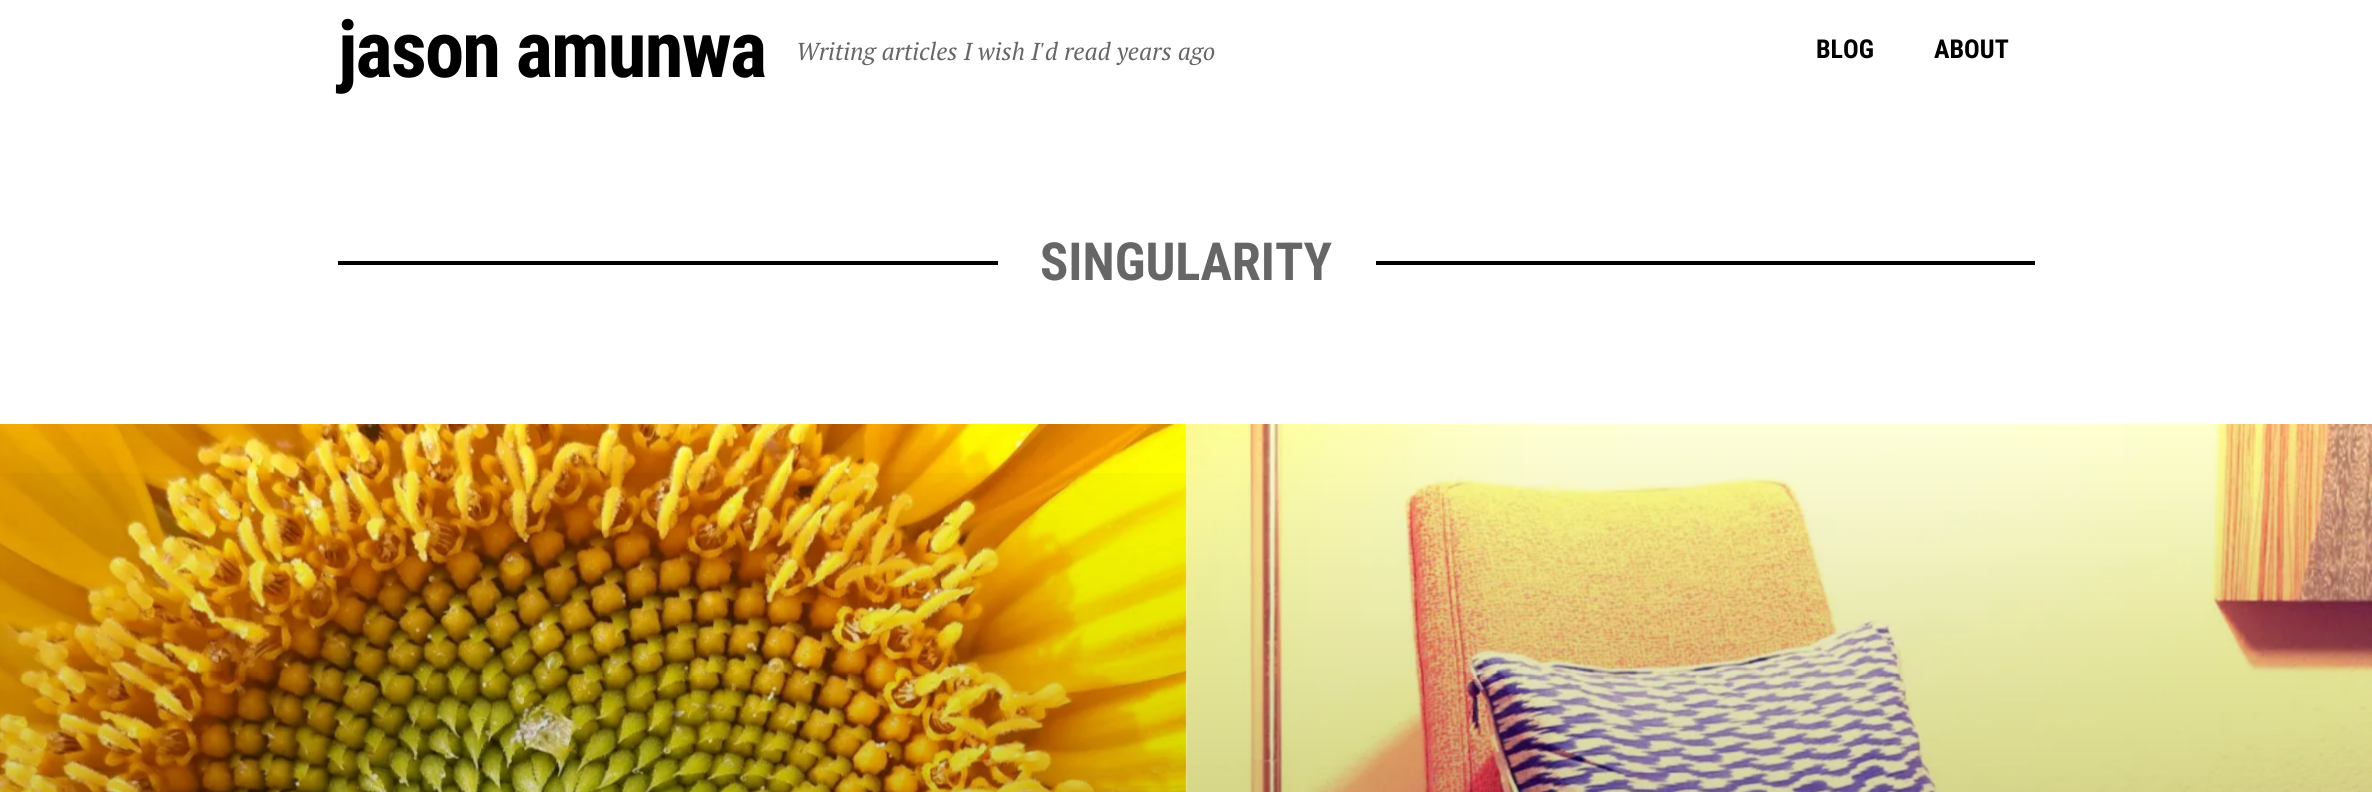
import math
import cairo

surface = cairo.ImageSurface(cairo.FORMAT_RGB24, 2372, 792)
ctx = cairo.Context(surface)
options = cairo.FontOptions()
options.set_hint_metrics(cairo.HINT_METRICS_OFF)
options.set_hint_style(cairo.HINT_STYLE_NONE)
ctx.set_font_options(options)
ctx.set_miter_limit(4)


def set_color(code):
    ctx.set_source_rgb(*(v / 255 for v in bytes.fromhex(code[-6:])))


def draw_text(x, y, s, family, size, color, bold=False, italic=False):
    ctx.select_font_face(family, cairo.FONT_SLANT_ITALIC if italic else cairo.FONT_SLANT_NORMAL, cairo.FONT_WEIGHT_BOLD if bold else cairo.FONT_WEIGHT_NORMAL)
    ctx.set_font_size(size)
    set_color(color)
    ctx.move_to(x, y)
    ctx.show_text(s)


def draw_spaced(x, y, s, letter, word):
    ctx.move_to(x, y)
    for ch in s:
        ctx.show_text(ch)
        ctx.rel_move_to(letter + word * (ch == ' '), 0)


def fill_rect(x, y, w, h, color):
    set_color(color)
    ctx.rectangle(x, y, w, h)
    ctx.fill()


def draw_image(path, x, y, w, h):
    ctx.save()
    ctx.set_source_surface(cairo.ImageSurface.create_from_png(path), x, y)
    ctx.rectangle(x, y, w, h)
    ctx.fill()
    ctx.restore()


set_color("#ffffff")
ctx.paint()
ctx.select_font_face("Roboto Condensed", cairo.FONT_SLANT_NORMAL, cairo.FONT_WEIGHT_BOLD)
ctx.set_font_size(78.75)
set_color("#000000")
draw_spaced(338, 77, "jason amunwa", -1.75, 0)
draw_text(796, 60, "Writing articles I wish I'd read years ago", "PT Serif", 24.5, "#666666", italic=True)
draw_text(1816, 58, "BLOG", "Roboto Condensed", 26, "#000000", bold=True)
draw_text(1934, 58, "ABOUT", "Roboto Condensed", 26, "#000000", bold=True)
fill_rect(338, 261, 1697, 4, "#000000")
fill_rect(998, 261, 378, 4, "#ffffff")
draw_text(1040, 280, "SINGULARITY", "Roboto Condensed", 52.5, "#666666", bold=True)
draw_image("assets/img1.png", 0, 424, 1187, 368)
gradient = cairo.LinearGradient(593, 423, 593, 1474)
gradient.add_color_stop_rgba(0, 0, 0, 0, 0)
gradient.add_color_stop_rgba(1, 0, 0, 0, 0.45)
ctx.set_source(gradient)
ctx.rectangle(0, 473, 1187, 319)
ctx.fill()
draw_image("assets/img2.png", 1185, 424, 1187, 368)
surface.write_to_png("output.png")
